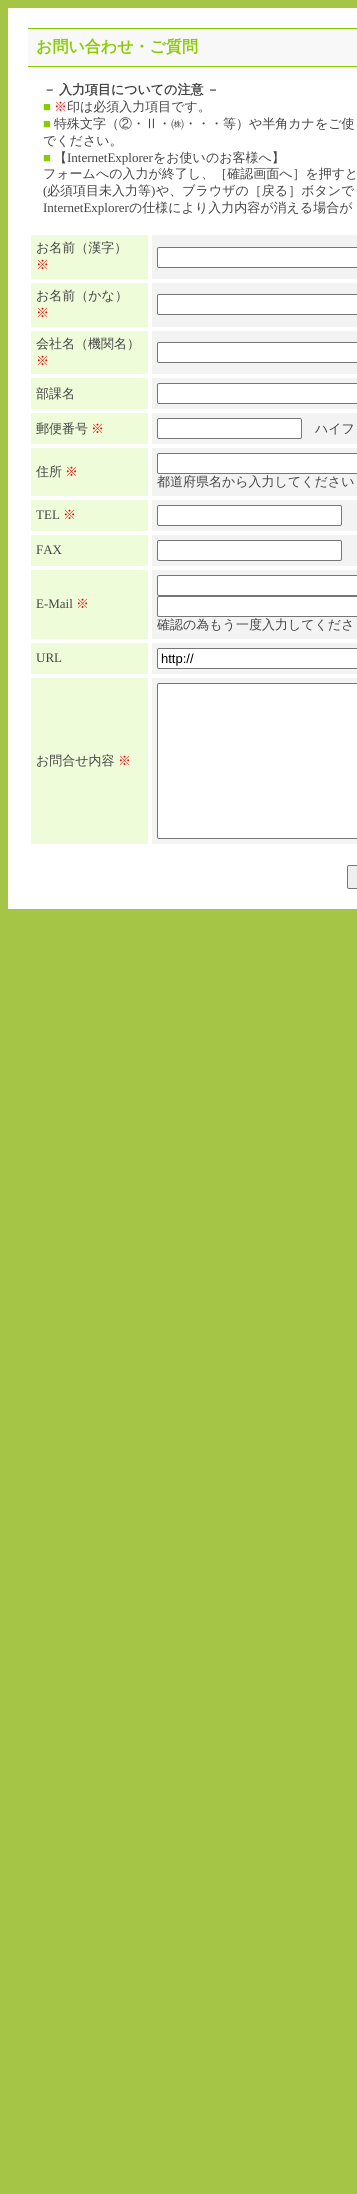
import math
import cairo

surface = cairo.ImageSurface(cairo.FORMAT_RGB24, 357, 2194)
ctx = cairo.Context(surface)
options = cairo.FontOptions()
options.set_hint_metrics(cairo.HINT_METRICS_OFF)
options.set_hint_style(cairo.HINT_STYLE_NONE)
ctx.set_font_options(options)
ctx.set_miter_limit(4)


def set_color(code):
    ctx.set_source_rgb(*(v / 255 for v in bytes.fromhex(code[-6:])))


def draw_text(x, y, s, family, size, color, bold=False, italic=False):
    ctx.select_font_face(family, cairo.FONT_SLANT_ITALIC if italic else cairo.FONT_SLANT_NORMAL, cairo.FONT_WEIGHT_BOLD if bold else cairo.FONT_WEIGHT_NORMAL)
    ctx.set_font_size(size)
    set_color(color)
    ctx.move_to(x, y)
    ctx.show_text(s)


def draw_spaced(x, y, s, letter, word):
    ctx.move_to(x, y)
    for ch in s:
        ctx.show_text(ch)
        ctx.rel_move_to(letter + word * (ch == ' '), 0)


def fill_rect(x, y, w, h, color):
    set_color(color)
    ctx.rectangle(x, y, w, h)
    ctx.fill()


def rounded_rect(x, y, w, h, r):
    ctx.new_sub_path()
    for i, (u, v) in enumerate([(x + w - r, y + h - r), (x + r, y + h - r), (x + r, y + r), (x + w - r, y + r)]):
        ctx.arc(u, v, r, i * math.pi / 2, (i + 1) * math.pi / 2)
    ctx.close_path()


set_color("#a5c546")
ctx.paint()
fill_rect(8, 8, 349, 901, "#ffffff")
fill_rect(28, 29, 329, 37, "#f8f8f8")
fill_rect(28, 28, 329, 1, "#88cc00")
fill_rect(28, 66, 329, 1, "#88cc00")
draw_text(36, 52, "お問い合わせ・ご質問", "WenQuanYi Zen Hei", 16, "#88cc00", bold=True)
ctx.set_font_size(13)
set_color("#444444")
draw_spaced(43, 94, "－ 入力項目についての注意 －", 0, -1)
draw_text(43, 111, "■", "Liberation Serif", 13, "#88cc00")
draw_text(54, 111, "※", "WenQuanYi Zen Hei Medium", 13, "#ff0000")
draw_text(67, 111, "印は必須入力項目です。", "WenQuanYi Zen Hei Medium", 13, "#444444")
draw_text(43, 128, "■", "Liberation Serif", 13, "#88cc00")
draw_text(54, 128, "特殊文字（②・Ⅱ・㈱・・・等）や半角カナをご使", "WenQuanYi Zen Hei Medium", 13, "#444444")
draw_text(43, 145, "でください。", "WenQuanYi Zen Hei Medium", 13, "#444444")
draw_text(43, 162, "■", "Liberation Serif", 13, "#88cc00")
draw_text(54, 162, "【", "WenQuanYi Zen Hei Medium", 13, "#444444")
draw_text(67, 162, "InternetExplorer", "Liberation Serif", 13, "#444444")
draw_text(153, 162, "をお使いのお客様へ】", "WenQuanYi Zen Hei Medium", 13, "#444444")
draw_spaced(43, 178, "フォームへの入力が終了し、［確認画面へ］を押すと", 0, -1)
draw_text(43, 195, "(", "Liberation Serif", 13, "#444444")
draw_text(47, 195, "必須項目未入力等", "WenQuanYi Zen Hei Medium", 13, "#444444")
draw_text(151, 195, ")", "Liberation Serif", 13, "#444444")
ctx.select_font_face("WenQuanYi Zen Hei Medium")
draw_spaced(156, 195, "や、ブラウザの［戻る］ボタンで", 0, -1)
draw_text(43, 212, "InternetExplorer", "Liberation Serif", 13, "#444444")
draw_text(129, 212, "の仕様により入力内容が消える場合が", "WenQuanYi Zen Hei Medium", 13, "#444444")
fill_rect(31, 235, 117, 44, "#eefcd9")
draw_text(36, 252, "お名前（漢字）", "WenQuanYi Zen Hei Medium", 13, "#444444")
draw_text(36, 269, "※", "WenQuanYi Zen Hei Medium", 13, "#ff0000")
fill_rect(152, 235, 205, 44, "#f3f3f3")
set_color("#ffffff")
rounded_rect(157.5, 247.5, 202, 20, 1.5)
ctx.fill_preserve()
set_color("#767676")
ctx.set_line_width(1)
ctx.stroke()
fill_rect(31, 283, 117, 44, "#eefcd9")
draw_text(36, 300, "お名前（かな）", "WenQuanYi Zen Hei Medium", 13, "#444444")
draw_text(36, 317, "※", "WenQuanYi Zen Hei Medium", 13, "#ff0000")
fill_rect(152, 283, 205, 44, "#f3f3f3")
set_color("#ffffff")
rounded_rect(157.5, 294.5, 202, 20, 1.5)
ctx.fill_preserve()
set_color("#767676")
ctx.stroke()
fill_rect(31, 331, 117, 43, "#eefcd9")
draw_text(36, 348, "会社名（機関名）", "WenQuanYi Zen Hei Medium", 13, "#444444")
draw_text(36, 365, "※", "WenQuanYi Zen Hei Medium", 13, "#ff0000")
fill_rect(152, 331, 205, 43, "#f3f3f3")
set_color("#ffffff")
rounded_rect(157.5, 342.5, 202, 20, 1.5)
ctx.fill_preserve()
set_color("#767676")
ctx.stroke()
fill_rect(31, 378, 117, 31, "#eefcd9")
draw_text(36, 398, "部課名", "WenQuanYi Zen Hei Medium", 13, "#444444")
fill_rect(152, 378, 205, 31, "#f3f3f3")
set_color("#ffffff")
rounded_rect(157.5, 383.5, 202, 20, 1.5)
ctx.fill_preserve()
set_color("#767676")
ctx.stroke()
fill_rect(31, 413, 117, 31, "#eefcd9")
draw_text(36, 433, "郵便番号", "WenQuanYi Zen Hei Medium", 13, "#444444")
draw_text(91, 433, "※", "WenQuanYi Zen Hei Medium", 13, "#ff0000")
fill_rect(152, 413, 205, 31, "#f3f3f3")
set_color("#ffffff")
rounded_rect(157.5, 418.5, 144, 20, 1.5)
ctx.fill_preserve()
set_color("#767676")
ctx.stroke()
draw_text(315, 433, "ハイフ", "WenQuanYi Zen Hei Medium", 13, "#444444")
fill_rect(31, 448, 117, 48, "#eefcd9")
draw_text(36, 476, "住所", "WenQuanYi Zen Hei Medium", 13, "#444444")
draw_text(65, 476, "※", "WenQuanYi Zen Hei Medium", 13, "#ff0000")
fill_rect(152, 448, 205, 48, "#f3f3f3")
set_color("#ffffff")
rounded_rect(157.5, 453.5, 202, 20, 1.5)
ctx.fill_preserve()
set_color("#767676")
ctx.stroke()
draw_text(157, 486, "都道府県名から入力してください", "WenQuanYi Zen Hei Medium", 13, "#444444")
fill_rect(31, 500, 117, 31, "#eefcd9")
draw_text(36, 519, "TEL", "Liberation Serif", 13, "#444444")
draw_text(63, 519, "※", "WenQuanYi Zen Hei Medium", 13, "#ff0000")
fill_rect(152, 500, 205, 31, "#f3f3f3")
set_color("#ffffff")
rounded_rect(157.5, 505.5, 184, 20, 1.5)
ctx.fill_preserve()
set_color("#767676")
ctx.stroke()
fill_rect(31, 535, 117, 31, "#eefcd9")
draw_text(36, 554, "FAX", "Liberation Serif", 13, "#444444")
fill_rect(152, 535, 205, 31, "#f3f3f3")
set_color("#ffffff")
rounded_rect(157.5, 540.5, 184, 20, 1.5)
ctx.fill_preserve()
set_color("#767676")
ctx.stroke()
fill_rect(31, 570, 117, 69, "#eefcd9")
draw_text(36, 608, "E-Mail", "Liberation Serif", 13, "#444444")
draw_text(76, 608, "※", "WenQuanYi Zen Hei Medium", 13, "#ff0000")
fill_rect(152, 570, 205, 69, "#f3f3f3")
set_color("#ffffff")
rounded_rect(157.5, 575.5, 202, 20, 1.5)
ctx.fill_preserve()
set_color("#767676")
ctx.stroke()
set_color("#ffffff")
rounded_rect(157.5, 596.5, 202, 20, 1.5)
ctx.fill_preserve()
set_color("#767676")
ctx.stroke()
draw_text(157, 629, "確認の為もう一度入力してくださ", "WenQuanYi Zen Hei Medium", 13, "#444444")
fill_rect(31, 643, 117, 31, "#eefcd9")
draw_text(36, 662, "URL", "Liberation Serif", 13, "#444444")
fill_rect(152, 643, 205, 31, "#f3f3f3")
set_color("#ffffff")
rounded_rect(157.5, 648.5, 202, 20, 1.5)
ctx.fill_preserve()
set_color("#767676")
ctx.stroke()
draw_text(161, 663, "http://", "Liberation Sans", 13, "#000000")
fill_rect(31, 678, 117, 166, "#eefcd9")
draw_text(36, 765, "お問合せ内容", "WenQuanYi Zen Hei Medium", 13, "#444444")
draw_text(118, 765, "※", "WenQuanYi Zen Hei Medium", 13, "#ff0000")
fill_rect(152, 678, 205, 166, "#f3f3f3")
set_color("#ffffff")
rounded_rect(157.5, 683.5, 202, 155, 1.5)
ctx.fill_preserve()
set_color("#767676")
ctx.stroke()
set_color("#efefef")
rounded_rect(347.5, 865.5, 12, 23, 1.5)
ctx.fill_preserve()
set_color("#767676")
ctx.stroke()
surface.write_to_png("output.png")
